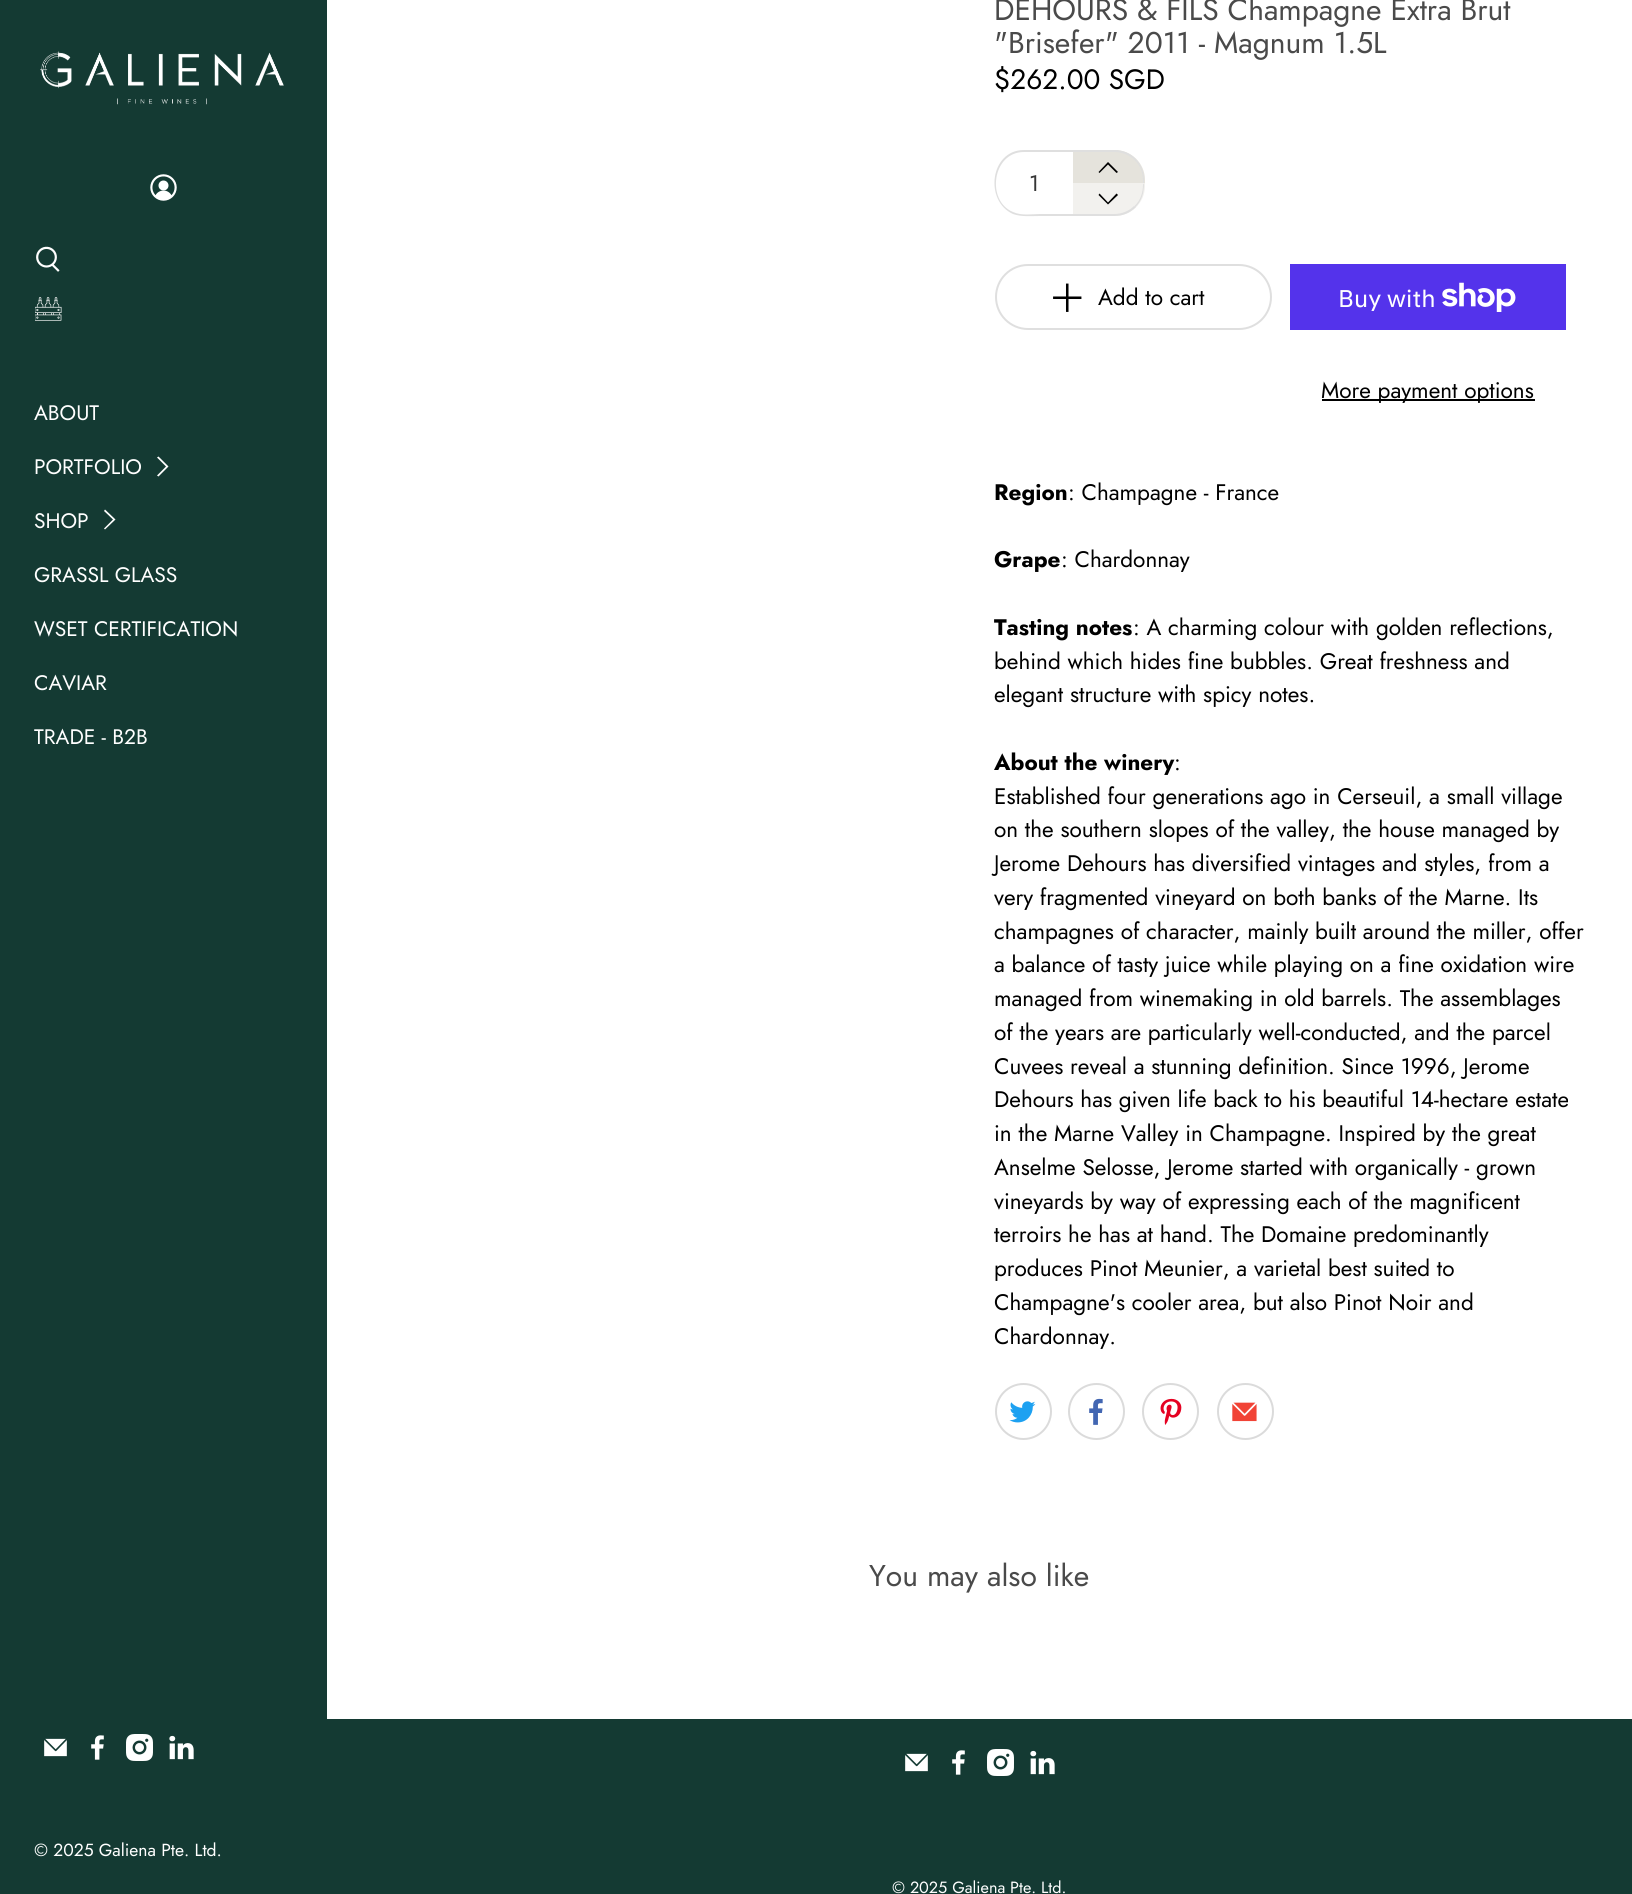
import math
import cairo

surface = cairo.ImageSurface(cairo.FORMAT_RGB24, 1632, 1894)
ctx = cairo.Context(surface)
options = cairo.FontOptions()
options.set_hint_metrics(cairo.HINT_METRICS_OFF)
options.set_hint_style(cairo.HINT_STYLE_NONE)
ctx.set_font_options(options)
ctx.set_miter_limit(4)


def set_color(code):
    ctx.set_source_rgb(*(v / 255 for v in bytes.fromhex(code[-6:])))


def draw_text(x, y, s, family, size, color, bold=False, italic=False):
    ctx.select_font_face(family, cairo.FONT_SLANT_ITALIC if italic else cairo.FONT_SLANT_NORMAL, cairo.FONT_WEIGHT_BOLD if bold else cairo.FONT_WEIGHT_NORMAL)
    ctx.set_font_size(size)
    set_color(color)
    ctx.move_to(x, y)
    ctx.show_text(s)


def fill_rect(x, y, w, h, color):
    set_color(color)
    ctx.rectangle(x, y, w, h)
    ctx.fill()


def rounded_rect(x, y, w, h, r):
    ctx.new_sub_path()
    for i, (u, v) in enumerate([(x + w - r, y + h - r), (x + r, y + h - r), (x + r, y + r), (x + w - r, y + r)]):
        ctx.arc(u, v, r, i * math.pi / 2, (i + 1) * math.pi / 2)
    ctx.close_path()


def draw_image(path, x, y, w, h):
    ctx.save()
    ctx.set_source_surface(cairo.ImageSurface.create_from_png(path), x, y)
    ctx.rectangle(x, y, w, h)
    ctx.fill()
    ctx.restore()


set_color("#ffffff")
ctx.paint()
fill_rect(0, 0, 327, 1894, "#143a33")
draw_image("assets/img1.png", 40, 51, 244, 54)
draw_image("assets/img2.png", 150, 174, 27, 27)
draw_image("assets/img3.png", 36, 246, 24, 26)
draw_image("assets/img4.png", 35, 297, 27, 24)
draw_text(34, 420, "ABOUT", "Jost", 21, "#ffffff")
draw_text(34, 474, "PORTFOLIO", "Jost", 21, "#ffffff")
ctx.new_path()
ctx.move_to(168.5, 466.5)
ctx.line_to(158.5, 476.5)
ctx.line_to(157, 475.5)
ctx.line_to(166, 466.5)
ctx.line_to(157, 457.5)
ctx.line_to(158.5, 456.5)
ctx.close_path()
ctx.fill()
draw_text(34, 528, "SHOP", "Jost", 21, "#ffffff")
ctx.new_path()
ctx.move_to(115.5, 519.5)
ctx.line_to(105, 529.5)
ctx.line_to(104, 528.5)
ctx.line_to(113, 519.5)
ctx.line_to(104, 511)
ctx.line_to(105, 509.5)
ctx.close_path()
ctx.fill()
draw_text(34, 582, "GRASSL GLASS", "Jost", 21, "#ffffff")
draw_text(34, 636, "WSET CERTIFICATION", "Jost", 21, "#ffffff")
draw_text(34, 690, "CAVIAR", "Jost", 21, "#ffffff")
draw_text(34, 744, "TRADE - B2B", "Jost", 21, "#ffffff")
draw_image("assets/img5.png", 44, 1738, 23, 19)
draw_image("assets/img6.png", 91, 1735, 13, 25)
draw_image("assets/img7.png", 126, 1734, 27, 27)
draw_image("assets/img8.png", 169, 1735, 25, 25)
draw_text(34, 1856, "© 2025 Galiena Pte. Ltd.", "Jost", 17.5, "#ffffff")
draw_text(994, 20, "DEHOURS & FILS Champagne Extra Brut", "Jost", 30, "#4a4a4a")
draw_text(994, 53, "\"Brisefer\" 2011 - Magnum 1.5L", "Jost", 30, "#4a4a4a")
draw_text(994, 89, "$262.00 SGD", "Jost", 28, "#000000")
set_color("#dfdfdf")
ctx.set_fill_rule(cairo.FILL_RULE_EVEN_ODD)
ctx.new_path()
ctx.move_to(1024, 150)
ctx.line_to(1072, 150)
ctx.line_to(1072, 216)
ctx.line_to(1040, 216)
ctx.curve_to(1031, 216, 1021, 217, 1013, 214)
ctx.curve_to(984, 201, 990, 150, 1024, 150)
ctx.close_path()
ctx.move_to(1024, 152)
ctx.line_to(1072, 152)
ctx.line_to(1072, 214)
ctx.line_to(1040, 214)
ctx.curve_to(1032, 214, 1022, 216, 1013, 212)
ctx.curve_to(986, 201, 992, 152, 1024, 152)
ctx.close_path()
ctx.fill()
draw_text(1029, 191, "1", "Jost", 22.5, "#363636")
set_color("#e5e3dc")
ctx.new_path()
ctx.move_to(1073, 150)
ctx.line_to(1115, 150)
ctx.curve_to(1131.5, 150, 1145, 163.5, 1145, 180)
ctx.line_to(1145, 183)
ctx.line_to(1073, 183)
ctx.close_path()
ctx.fill()
set_color("#dfdfdf")
ctx.new_path()
ctx.move_to(1072, 150)
ctx.line_to(1114, 150)
ctx.curve_to(1131, 150, 1144, 163, 1144, 180)
ctx.line_to(1144, 183)
ctx.line_to(1072, 183)
ctx.close_path()
ctx.move_to(1072, 152)
ctx.line_to(1114, 152)
ctx.curve_to(1130, 152, 1143, 164, 1143, 180)
ctx.line_to(1143, 183)
ctx.line_to(1072, 183)
ctx.close_path()
ctx.fill()
set_color("#000000")
ctx.set_fill_rule(cairo.FILL_RULE_WINDING)
ctx.new_path()
ctx.move_to(1116.5, 173)
ctx.line_to(1108, 164.5)
ctx.line_to(1099.5, 173)
ctx.line_to(1098.5, 172)
ctx.line_to(1108, 162)
ctx.line_to(1118, 172)
ctx.close_path()
ctx.fill()
set_color("#f2f1ee")
ctx.new_path()
ctx.move_to(1073, 183)
ctx.line_to(1145, 183)
ctx.line_to(1145, 186)
ctx.curve_to(1145, 202.5, 1131.5, 216, 1115, 216)
ctx.line_to(1073, 216)
ctx.close_path()
ctx.fill()
set_color("#dfdfdf")
ctx.new_path()
ctx.move_to(1134.5, 206)
ctx.curve_to(1140.5, 200.5, 1143, 192.5, 1143, 184.5)
ctx.line_to(1144, 183.5)
ctx.curve_to(1144, 192.5, 1142, 200.5, 1135.5, 207)
ctx.close_path()
ctx.fill()
ctx.new_path()
ctx.move_to(1072, 214)
ctx.line_to(1114, 214)
ctx.curve_to(1122, 214, 1129, 211, 1134, 206)
ctx.line_to(1136, 207)
ctx.curve_to(1130, 213, 1123, 216, 1114, 216)
ctx.line_to(1072, 216)
ctx.close_path()
ctx.fill()
set_color("#000000")
ctx.new_path()
ctx.move_to(1108, 204.5)
ctx.line_to(1098.5, 195)
ctx.line_to(1099.5, 193.5)
ctx.line_to(1108, 202.5)
ctx.line_to(1116.5, 193.5)
ctx.line_to(1118, 195)
ctx.close_path()
ctx.fill()
rounded_rect(996, 265, 275, 64, 32)
set_color("#dfdfdf")
ctx.stroke()
draw_image("assets/img9.png", 1053, 283, 29, 29)
draw_text(1098, 305, "Add to cart", "Jost", 22.5, "#000000")
fill_rect(1290, 264, 276, 66, "#5433eb")
draw_text(1338, 307, "Buy with", "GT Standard", 24, "#ffffff")
draw_image("assets/img10.png", 1442, 282, 74, 30)
fill_rect(1322, 399, 213, 2, "#000000")
draw_text(1321, 398, "More payment options", "Jost", 22.5, "#000000")
draw_text(994, 500, "Region", "Jost", 22.5, "#000000", bold=True)
draw_text(1068, 500, ": Champagne - France", "Jost", 22.5, "#000000")
draw_text(994, 567, "Grape", "Jost", 22.5, "#000000", bold=True)
draw_text(1061, 567, ": Chardonnay", "Jost", 22.5, "#000000")
draw_text(994, 635, "Tasting notes", "Jost", 22.5, "#000000", bold=True)
draw_text(1133, 635, ": A charming colour with golden reflections,", "Jost", 22.5, "#000000")
draw_text(994, 669, "behind which hides fine bubbles. Great freshness and", "Jost", 22.5, "#000000")
draw_text(994, 702, "elegant structure with spicy notes.", "Jost", 22.5, "#000000")
draw_text(994, 770, "About the winery", "Jost", 22.5, "#000000", bold=True)
draw_text(1174, 770, ":", "Jost", 22.5, "#000000")
draw_text(994, 804, "Established four generations ago in Cerseuil, a small village", "Jost", 22.5, "#000000")
draw_text(994, 837, "on the southern slopes of the valley, the house managed by", "Jost", 22.5, "#000000")
draw_text(994, 871, "Jerome Dehours has diversified vintages and styles, from a", "Jost", 22.5, "#000000")
draw_text(994, 905, "very fragmented vineyard on both banks of the Marne. Its", "Jost", 22.5, "#000000")
draw_text(994, 939, "champagnes of character, mainly built around the miller, offer", "Jost", 22.5, "#000000")
draw_text(994, 972, "a balance of tasty juice while playing on a fine oxidation wire", "Jost", 22.5, "#000000")
draw_text(994, 1006, "managed from winemaking in old barrels. The assemblages", "Jost", 22.5, "#000000")
draw_text(994, 1040, "of the years are particularly well-conducted, and the parcel", "Jost", 22.5, "#000000")
draw_text(994, 1074, "Cuvees reveal a stunning definition. Since 1996, Jerome", "Jost", 22.5, "#000000")
draw_text(994, 1107, "Dehours has given life back to his beautiful 14-hectare estate", "Jost", 22.5, "#000000")
draw_text(994, 1141, "in the Marne Valley in Champagne. Inspired by the great", "Jost", 22.5, "#000000")
draw_text(994, 1175, "Anselme Selosse, Jerome started with organically - grown", "Jost", 22.5, "#000000")
draw_text(994, 1209, "vineyards by way of expressing each of the magnificent", "Jost", 22.5, "#000000")
draw_text(994, 1242, "terroirs he has at hand. The Domaine predominantly", "Jost", 22.5, "#000000")
draw_text(994, 1276, "produces Pinot Meunier, a varietal best suited to", "Jost", 22.5, "#000000")
draw_text(994, 1310, "Champagne's cooler area, but also Pinot Noir and", "Jost", 22.5, "#000000")
draw_text(994, 1344, "Chardonnay.", "Jost", 22.5, "#000000")
ctx.new_path()
ctx.arc(1023.5, 1411.5, 27.5, 0, 2 * math.pi)
set_color("#dbdbdb")
ctx.stroke()
draw_image("assets/img11.png", 1009, 1401, 27, 22)
ctx.arc(1096.5, 1411.5, 27.5, 0, 2 * math.pi)
ctx.stroke()
draw_image("assets/img12.png", 1089, 1398, 14, 27)
ctx.arc(1170.5, 1411.5, 27.5, 0, 2 * math.pi)
ctx.stroke()
draw_image("assets/img13.png", 1160, 1398, 22, 27)
ctx.arc(1245.5, 1411.5, 27.5, 0, 2 * math.pi)
ctx.stroke()
draw_image("assets/img14.png", 1232, 1402, 25, 20)
draw_text(869, 1586, "You may also like", "Jost", 30, "#4a4a4a")
fill_rect(327, 1719, 1305, 175, "#143a33")
draw_image("assets/img5.png", 905, 1753, 23, 19)
draw_image("assets/img6.png", 952, 1750, 13, 25)
draw_image("assets/img7.png", 987, 1749, 27, 27)
draw_image("assets/img8.png", 1030, 1750, 25, 25)
draw_text(892, 1893, "© 2025 Galiena Pte. Ltd.", "Jost", 16.25, "#ffffff")
surface.write_to_png("output.png")
